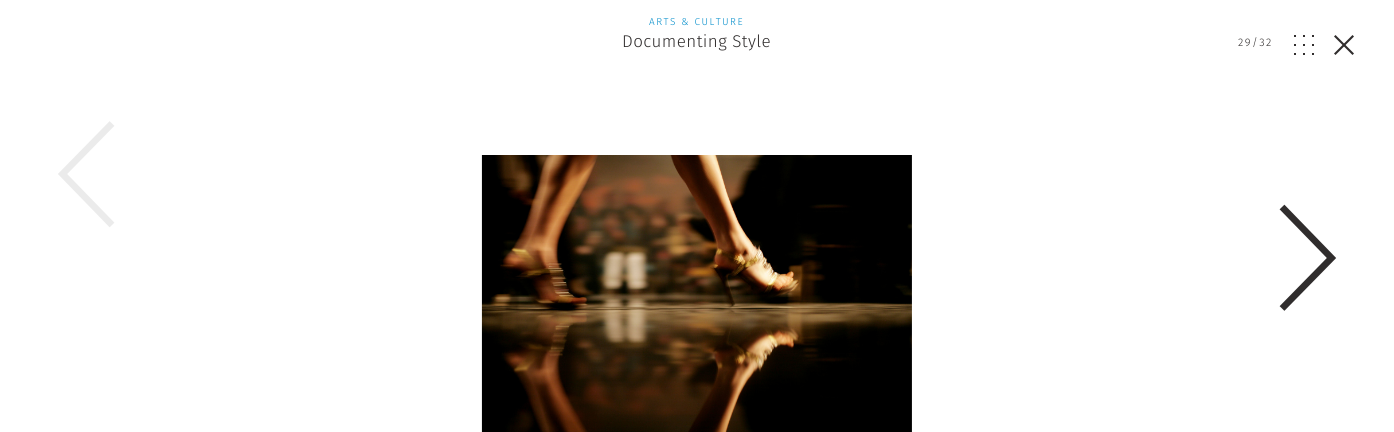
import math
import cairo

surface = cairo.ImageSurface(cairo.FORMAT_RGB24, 1394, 432)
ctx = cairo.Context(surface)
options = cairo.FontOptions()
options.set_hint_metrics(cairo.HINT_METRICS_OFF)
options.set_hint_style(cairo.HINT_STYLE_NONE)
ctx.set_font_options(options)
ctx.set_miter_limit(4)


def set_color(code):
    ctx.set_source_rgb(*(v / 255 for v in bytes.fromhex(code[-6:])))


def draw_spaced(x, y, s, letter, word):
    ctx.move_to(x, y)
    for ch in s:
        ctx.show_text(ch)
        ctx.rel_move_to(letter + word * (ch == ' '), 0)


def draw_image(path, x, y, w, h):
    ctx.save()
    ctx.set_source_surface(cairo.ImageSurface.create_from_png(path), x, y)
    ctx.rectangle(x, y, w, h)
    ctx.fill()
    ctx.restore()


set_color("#ffffff")
ctx.paint()
ctx.select_font_face("Fira Sans Light")
ctx.set_font_size(10)
set_color("#008cca")
draw_spaced(649, 25, "ARTS & CULTURE", 1.5, 0)
ctx.set_font_size(17)
set_color("#302d2d")
draw_spaced(622, 47, "Documenting Style", 0.4, 0)
ctx.set_font_size(11)
draw_spaced(1238, 46, "29/32", 1.5, 0)
draw_image("assets/img1.png", 1294, 35, 20, 20)
ctx.new_path()
ctx.move_to(1335.5, 35)
ctx.line_to(1354, 53.5)
ctx.line_to(1352.5, 55)
ctx.line_to(1334, 36.5)
ctx.close_path()
ctx.fill()
ctx.new_path()
ctx.move_to(1334, 53.5)
ctx.line_to(1352.5, 35)
ctx.line_to(1354, 36.5)
ctx.line_to(1335.5, 55)
ctx.close_path()
ctx.fill()
ctx.new_path()
ctx.move_to(112, 123.5)
ctx.line_to(62.5, 174)
ctx.line_to(112, 225)
set_color("#ebebeb")
ctx.set_line_width(6.7)
ctx.stroke()
draw_image("assets/img2.png", 481, 155, 431, 277)
ctx.new_path()
ctx.move_to(1282, 308.5)
ctx.line_to(1331.5, 258)
ctx.line_to(1282, 207)
set_color("#302d2d")
ctx.stroke()
surface.write_to_png("output.png")
